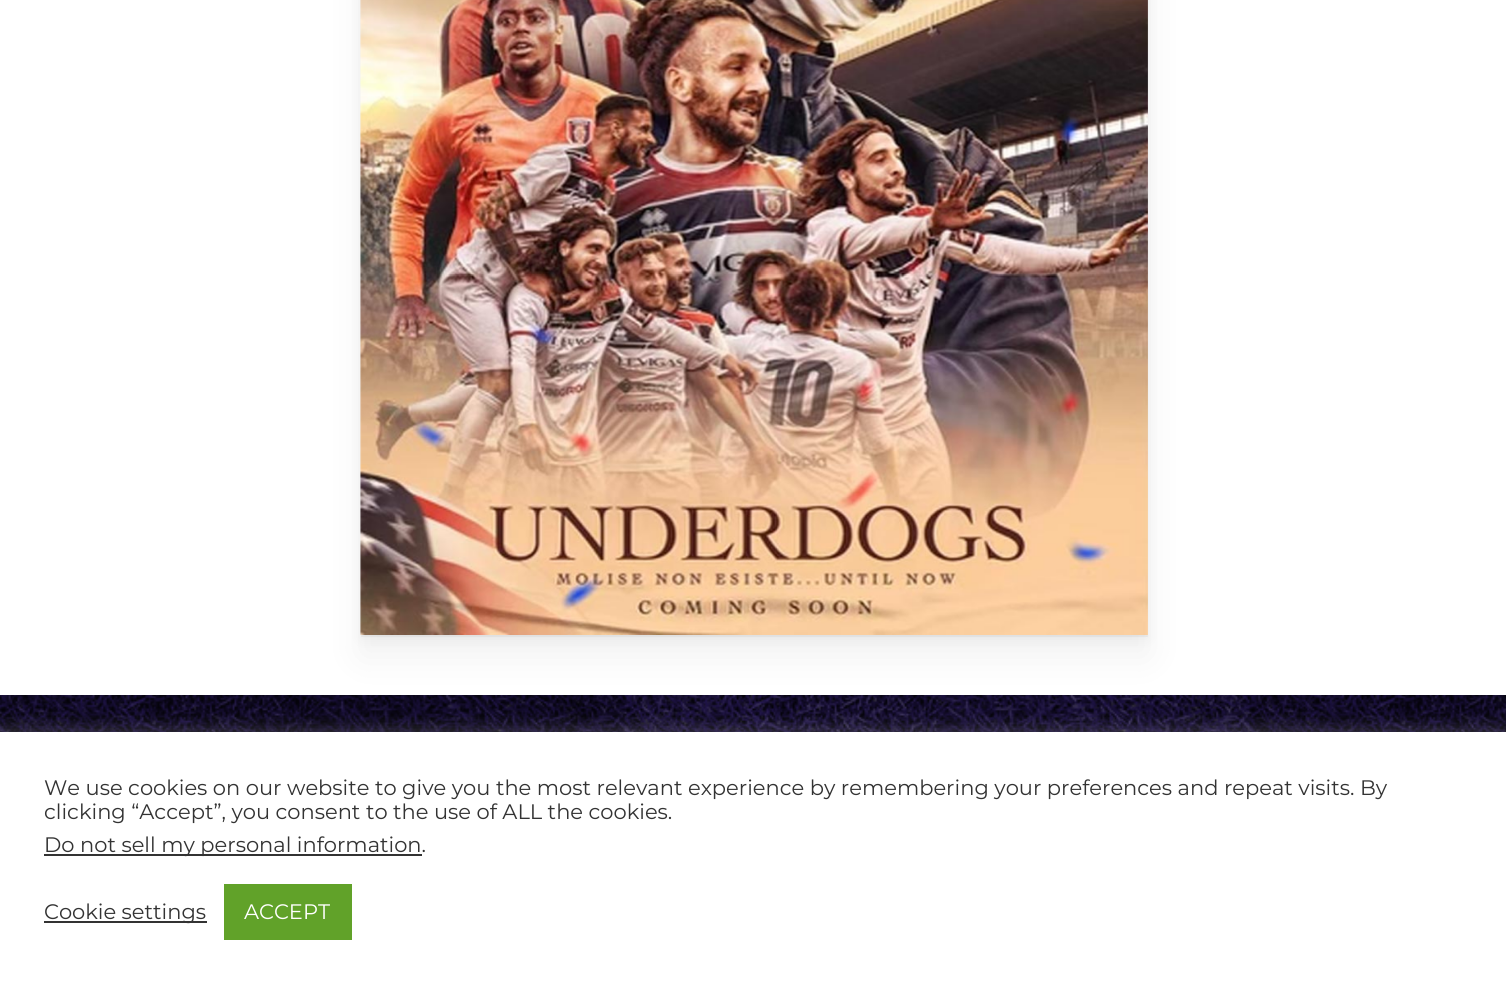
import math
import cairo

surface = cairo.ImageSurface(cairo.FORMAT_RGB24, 1506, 992)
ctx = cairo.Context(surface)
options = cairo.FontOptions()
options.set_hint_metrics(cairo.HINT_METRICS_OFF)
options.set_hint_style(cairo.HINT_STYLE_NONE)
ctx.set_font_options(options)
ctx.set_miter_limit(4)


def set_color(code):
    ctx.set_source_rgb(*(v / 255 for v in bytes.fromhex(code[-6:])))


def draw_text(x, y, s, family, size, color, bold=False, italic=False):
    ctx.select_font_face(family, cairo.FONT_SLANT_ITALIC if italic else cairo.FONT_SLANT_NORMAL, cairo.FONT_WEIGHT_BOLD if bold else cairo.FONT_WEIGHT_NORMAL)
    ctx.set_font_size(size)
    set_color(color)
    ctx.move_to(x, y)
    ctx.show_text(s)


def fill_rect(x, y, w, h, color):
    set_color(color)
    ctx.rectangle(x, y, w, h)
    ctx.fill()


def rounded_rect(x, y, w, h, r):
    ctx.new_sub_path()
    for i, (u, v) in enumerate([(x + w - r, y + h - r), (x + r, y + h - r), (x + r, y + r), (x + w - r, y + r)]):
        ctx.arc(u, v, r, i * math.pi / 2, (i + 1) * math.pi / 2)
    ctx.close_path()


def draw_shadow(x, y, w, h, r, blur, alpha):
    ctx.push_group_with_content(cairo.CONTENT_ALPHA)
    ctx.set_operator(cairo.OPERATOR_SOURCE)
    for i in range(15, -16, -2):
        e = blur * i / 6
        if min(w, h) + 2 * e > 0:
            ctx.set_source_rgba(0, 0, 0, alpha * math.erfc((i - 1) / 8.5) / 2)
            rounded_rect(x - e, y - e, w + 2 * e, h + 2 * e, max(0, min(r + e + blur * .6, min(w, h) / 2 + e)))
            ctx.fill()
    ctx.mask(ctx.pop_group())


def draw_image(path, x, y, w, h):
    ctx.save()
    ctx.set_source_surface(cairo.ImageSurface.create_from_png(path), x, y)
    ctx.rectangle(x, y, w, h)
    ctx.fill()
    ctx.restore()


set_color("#221550")
ctx.paint()
fill_rect(0, 0, 1506, 695, "#ffffff")
draw_image("assets/img2.png", 0, 695, 1506, 37)
set_color("#000000")
draw_shadow(361, -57, 787, 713, 0, 19, 0.06)
draw_shadow(361, -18, 787, 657, 0, 6, 0.05)
ctx.set_source_rgba(0, 0, 0, 0.04)
ctx.rectangle(361, 635, 787, 2)
ctx.fill()
draw_image("assets/img1.png", 360, 0, 788, 635)
set_color("#acabab")
draw_shadow(0, 730, 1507, 261, 0, 9, 0.3)
fill_rect(0, 732, 1506, 260, "#ffffff")
draw_text(44, 795, "We use cookies on our website to give you the most relevant experience by remembering your preferences and repeat visits. By", "Montserrat", 21, "#333333")
draw_text(44, 819, "clicking “Accept”, you consent to the use of ALL the cookies.", "Montserrat", 21, "#333333")
fill_rect(44, 854, 378, 2, "#333333")
draw_text(44, 852, "Do not sell my personal information.", "Montserrat", 21, "#333333")
fill_rect(44, 921, 163, 2, "#333333")
draw_text(44, 919, "Cookie settings", "Montserrat", 21, "#333333")
fill_rect(224, 884, 128, 56, "#61a229")
draw_text(244, 919, "ACCEPT", "Montserrat", 21, "#ffffff")
surface.write_to_png("output.png")
